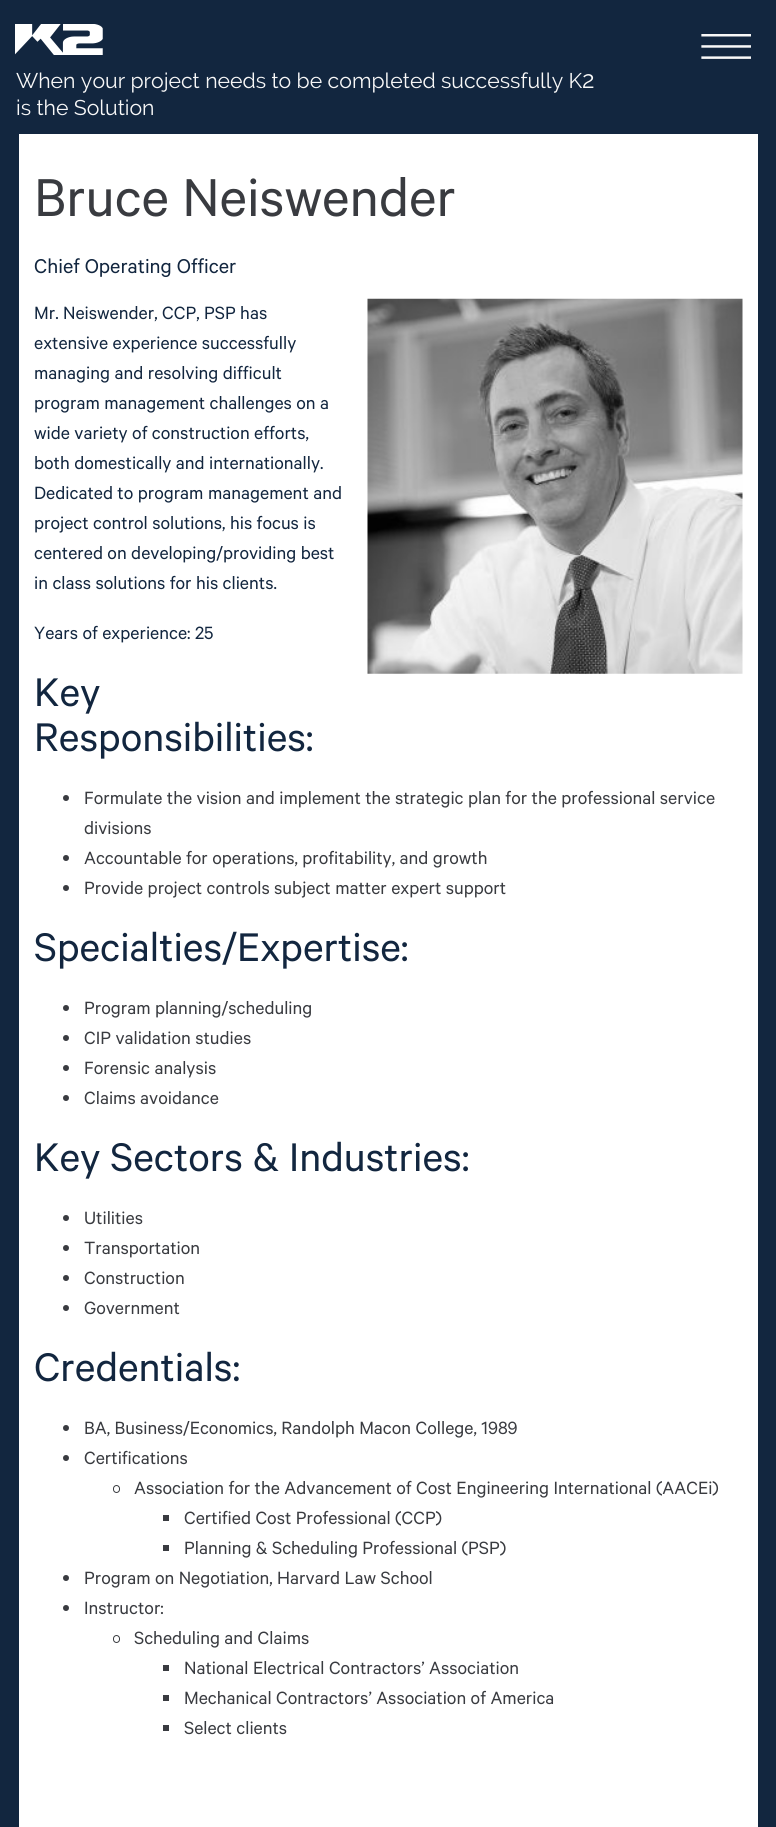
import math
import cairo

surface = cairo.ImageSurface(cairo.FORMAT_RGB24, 776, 1827)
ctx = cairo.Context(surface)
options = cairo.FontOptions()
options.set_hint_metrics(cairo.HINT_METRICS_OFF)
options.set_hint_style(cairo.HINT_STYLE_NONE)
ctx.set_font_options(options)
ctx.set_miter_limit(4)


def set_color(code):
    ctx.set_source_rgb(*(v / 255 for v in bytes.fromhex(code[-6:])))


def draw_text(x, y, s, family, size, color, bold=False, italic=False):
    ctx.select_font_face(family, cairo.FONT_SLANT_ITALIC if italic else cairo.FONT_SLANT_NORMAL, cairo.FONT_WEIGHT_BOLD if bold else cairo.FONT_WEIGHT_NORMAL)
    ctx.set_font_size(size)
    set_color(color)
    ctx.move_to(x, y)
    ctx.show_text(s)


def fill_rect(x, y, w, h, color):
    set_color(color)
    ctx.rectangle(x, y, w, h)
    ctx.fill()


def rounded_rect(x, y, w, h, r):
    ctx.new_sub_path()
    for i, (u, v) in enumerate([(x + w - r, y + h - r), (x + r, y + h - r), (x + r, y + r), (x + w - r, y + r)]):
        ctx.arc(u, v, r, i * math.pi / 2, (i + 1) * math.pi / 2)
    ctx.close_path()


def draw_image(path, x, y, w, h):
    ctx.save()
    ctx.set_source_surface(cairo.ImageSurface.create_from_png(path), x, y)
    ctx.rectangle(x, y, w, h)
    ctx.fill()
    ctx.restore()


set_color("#12263f")
ctx.paint()
draw_image("assets/img1.png", 701, 34, 50, 25)
draw_image("assets/img2.png", 15, 24, 88, 31)
draw_text(16, 88, "When your project needs to be completed successfully K", "Raleway", 21.25, "#f8f8f8")
draw_text(582, 88, "2", "Raleway", 24, "#f8f8f8")
draw_text(16, 115, "is the Solution", "Raleway", 21.25, "#f8f8f8")
fill_rect(19, 134, 739, 1693, "#ffffff")
draw_text(34, 216, "Bruce Neiswender", "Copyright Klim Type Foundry", 60, "#393b40")
draw_text(34, 273, "Chief Operating Officer", "Copyright Klim Type Foundry", 22.5, "#12263f")
draw_text(34, 319, "Mr. Neiswender, CCP, PSP has", "Copyright Klim Type Foundry", 20, "#12263f")
draw_text(34, 349, "extensive experience successfully", "Copyright Klim Type Foundry", 20, "#12263f")
draw_text(34, 379, "managing and resolving difficult", "Copyright Klim Type Foundry", 20, "#12263f")
draw_text(34, 409, "program management challenges on a", "Copyright Klim Type Foundry", 20, "#12263f")
draw_text(34, 439, "wide variety of construction efforts,", "Copyright Klim Type Foundry", 20, "#12263f")
draw_text(34, 469, "both domestically and internationally.", "Copyright Klim Type Foundry", 20, "#12263f")
draw_text(34, 499, "Dedicated to program management and", "Copyright Klim Type Foundry", 20, "#12263f")
draw_text(34, 529, "project control solutions, his focus is", "Copyright Klim Type Foundry", 20, "#12263f")
draw_text(34, 559, "centered on developing/providing best", "Copyright Klim Type Foundry", 20, "#12263f")
draw_text(34, 589, "in class solutions for his clients.", "Copyright Klim Type Foundry", 20, "#12263f")
draw_image("assets/img3.png", 367, 298, 376, 376)
draw_text(34, 639, "Years of experience: 25", "Copyright Klim Type Foundry", 20, "#12263f")
draw_text(34, 706, "Key", "Copyright Klim Type Foundry", 45, "#12263f")
draw_text(34, 751, "Responsibilities:", "Copyright Klim Type Foundry", 45, "#12263f")
set_color("#393b40")
ctx.new_path()
ctx.arc(66, 798, 3, 0, 2 * math.pi)
ctx.fill()
draw_text(84, 804, "Formulate the vision and implement the strategic plan for the professional service", "Copyright Klim Type Foundry", 20, "#393b40")
draw_text(84, 834, "divisions", "Copyright Klim Type Foundry", 20, "#393b40")
ctx.new_path()
ctx.arc(66, 858, 3, 0, 2 * math.pi)
ctx.fill()
draw_text(84, 864, "Accountable for operations, profitability, and growth", "Copyright Klim Type Foundry", 20, "#393b40")
ctx.new_path()
ctx.arc(66, 888, 3, 0, 2 * math.pi)
ctx.fill()
draw_text(84, 894, "Provide project controls subject matter expert support", "Copyright Klim Type Foundry", 20, "#393b40")
draw_text(34, 961, "Specialties/Expertise:", "Copyright Klim Type Foundry", 45, "#12263f")
set_color("#393b40")
ctx.new_path()
ctx.arc(66, 1008, 3, 0, 2 * math.pi)
ctx.fill()
draw_text(84, 1014, "Program planning/scheduling", "Copyright Klim Type Foundry", 20, "#393b40")
ctx.new_path()
ctx.arc(66, 1038, 3, 0, 2 * math.pi)
ctx.fill()
draw_text(84, 1044, "CIP validation studies", "Copyright Klim Type Foundry", 20, "#393b40")
ctx.new_path()
ctx.arc(66, 1068, 3, 0, 2 * math.pi)
ctx.fill()
draw_text(84, 1074, "Forensic analysis", "Copyright Klim Type Foundry", 20, "#393b40")
ctx.new_path()
ctx.arc(66, 1098, 3, 0, 2 * math.pi)
ctx.fill()
draw_text(84, 1104, "Claims avoidance", "Copyright Klim Type Foundry", 20, "#393b40")
draw_text(34, 1171, "Key Sectors & Industries:", "Copyright Klim Type Foundry", 45, "#12263f")
set_color("#393b40")
ctx.new_path()
ctx.arc(66, 1218, 3, 0, 2 * math.pi)
ctx.fill()
draw_text(84, 1224, "Utilities", "Copyright Klim Type Foundry", 20, "#393b40")
ctx.new_path()
ctx.arc(66, 1248, 3, 0, 2 * math.pi)
ctx.fill()
draw_text(84, 1254, "Transportation", "Copyright Klim Type Foundry", 20, "#393b40")
ctx.new_path()
ctx.arc(66, 1278, 3, 0, 2 * math.pi)
ctx.fill()
draw_text(84, 1284, "Construction", "Copyright Klim Type Foundry", 20, "#393b40")
ctx.new_path()
ctx.arc(66, 1308, 3, 0, 2 * math.pi)
ctx.fill()
draw_text(84, 1314, "Government", "Copyright Klim Type Foundry", 20, "#393b40")
draw_text(34, 1381, "Credentials:", "Copyright Klim Type Foundry", 45, "#12263f")
set_color("#393b40")
ctx.new_path()
ctx.arc(66, 1428, 3, 0, 2 * math.pi)
ctx.fill()
draw_text(84, 1434, "BA, Business/Economics, Randolph Macon College, 1989", "Copyright Klim Type Foundry", 20, "#393b40")
ctx.new_path()
ctx.arc(66, 1458, 3, 0, 2 * math.pi)
ctx.fill()
draw_text(84, 1464, "Certifications", "Copyright Klim Type Foundry", 20, "#393b40")
rounded_rect(113.5, 1485.5, 6, 7, 3)
ctx.set_line_width(1)
ctx.stroke()
draw_text(134, 1494, "Association for the Advancement of Cost Engineering International (AACEi)", "Copyright Klim Type Foundry", 20, "#393b40")
fill_rect(163, 1515, 6, 6, "#393b40")
draw_text(184, 1524, "Certified Cost Professional (CCP)", "Copyright Klim Type Foundry", 20, "#393b40")
fill_rect(163, 1545, 6, 6, "#393b40")
draw_text(184, 1554, "Planning & Scheduling Professional (PSP)", "Copyright Klim Type Foundry", 20, "#393b40")
ctx.new_path()
ctx.arc(66, 1578, 3, 0, 2 * math.pi)
ctx.fill()
draw_text(84, 1584, "Program on Negotiation, Harvard Law School", "Copyright Klim Type Foundry", 20, "#393b40")
ctx.new_path()
ctx.arc(66, 1608, 3, 0, 2 * math.pi)
ctx.fill()
draw_text(84, 1614, "Instructor:", "Copyright Klim Type Foundry", 20, "#393b40")
rounded_rect(113.5, 1635.5, 6, 7, 3)
ctx.stroke()
draw_text(134, 1644, "Scheduling and Claims", "Copyright Klim Type Foundry", 20, "#393b40")
fill_rect(163, 1665, 6, 6, "#393b40")
draw_text(184, 1674, "National Electrical Contractors’ Association", "Copyright Klim Type Foundry", 20, "#393b40")
fill_rect(163, 1695, 6, 6, "#393b40")
draw_text(184, 1704, "Mechanical Contractors’ Association of America", "Copyright Klim Type Foundry", 20, "#393b40")
fill_rect(163, 1725, 6, 6, "#393b40")
draw_text(184, 1734, "Select clients", "Copyright Klim Type Foundry", 20, "#393b40")
surface.write_to_png("output.png")
